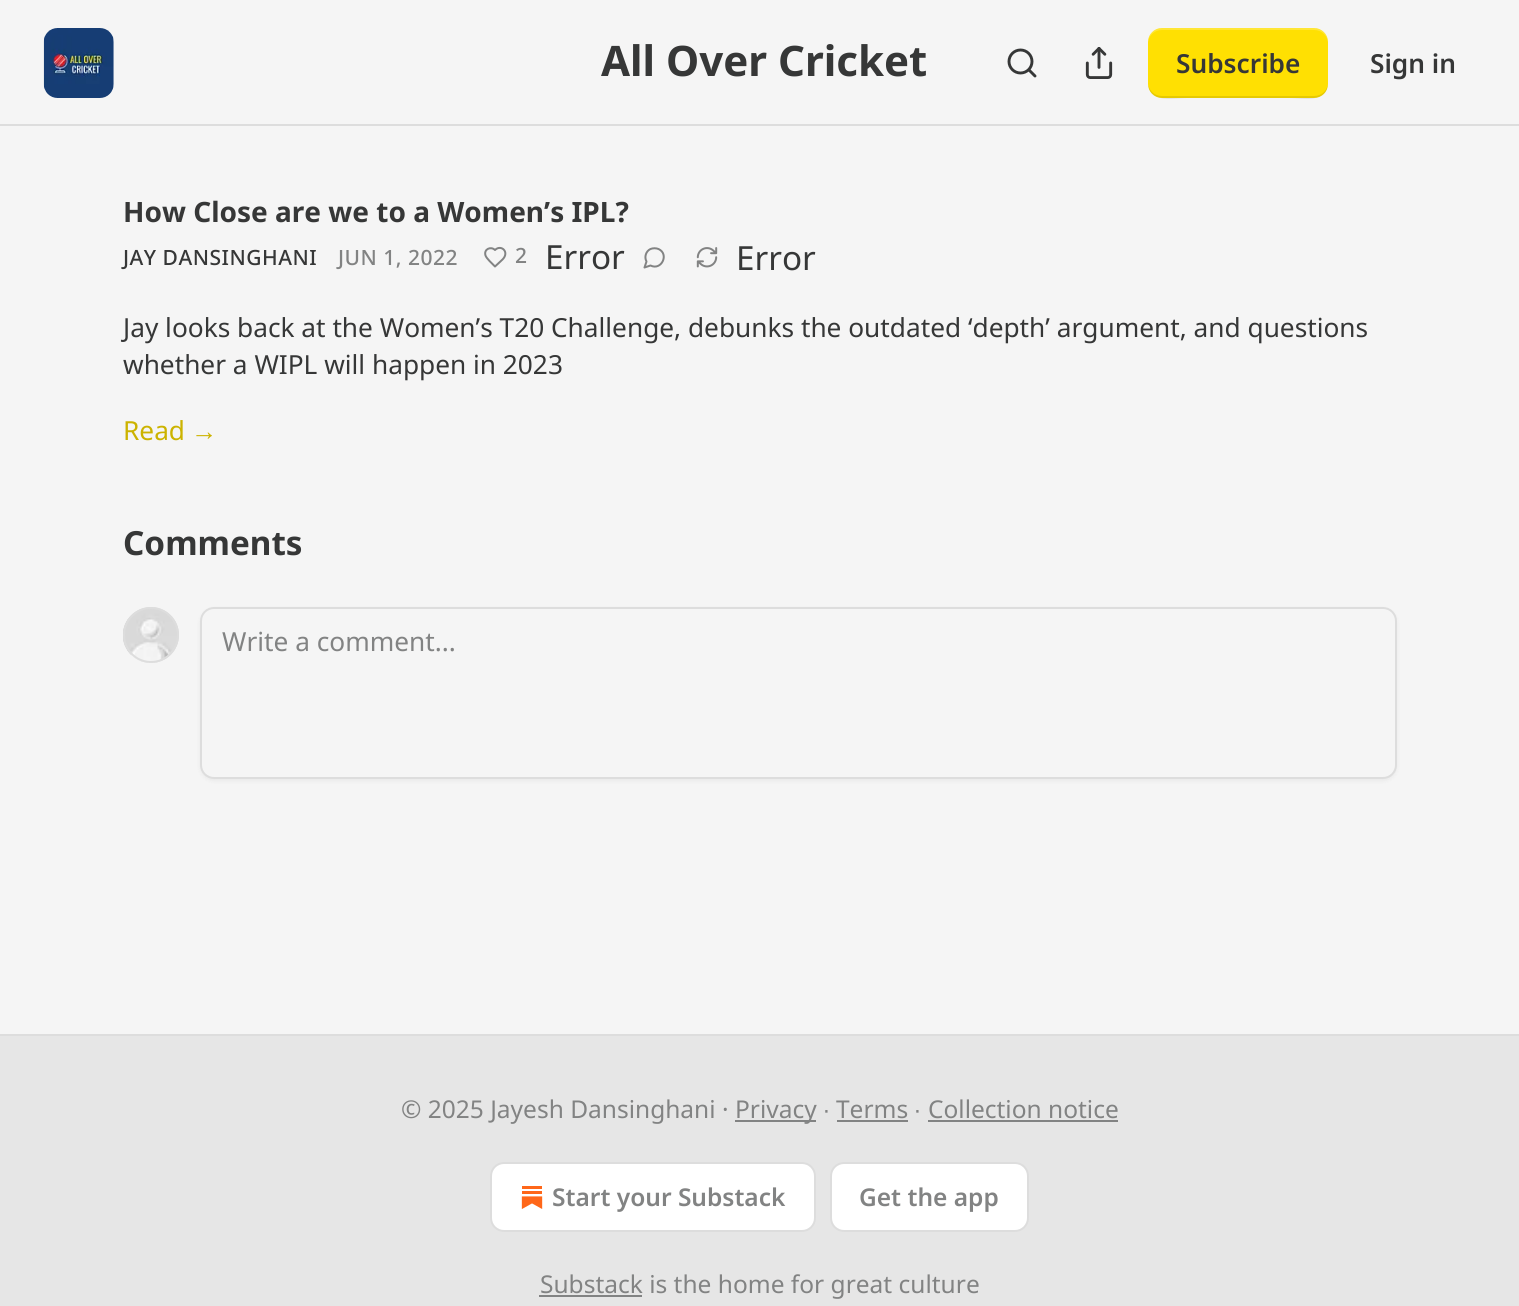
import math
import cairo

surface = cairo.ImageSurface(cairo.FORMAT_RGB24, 1519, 1306)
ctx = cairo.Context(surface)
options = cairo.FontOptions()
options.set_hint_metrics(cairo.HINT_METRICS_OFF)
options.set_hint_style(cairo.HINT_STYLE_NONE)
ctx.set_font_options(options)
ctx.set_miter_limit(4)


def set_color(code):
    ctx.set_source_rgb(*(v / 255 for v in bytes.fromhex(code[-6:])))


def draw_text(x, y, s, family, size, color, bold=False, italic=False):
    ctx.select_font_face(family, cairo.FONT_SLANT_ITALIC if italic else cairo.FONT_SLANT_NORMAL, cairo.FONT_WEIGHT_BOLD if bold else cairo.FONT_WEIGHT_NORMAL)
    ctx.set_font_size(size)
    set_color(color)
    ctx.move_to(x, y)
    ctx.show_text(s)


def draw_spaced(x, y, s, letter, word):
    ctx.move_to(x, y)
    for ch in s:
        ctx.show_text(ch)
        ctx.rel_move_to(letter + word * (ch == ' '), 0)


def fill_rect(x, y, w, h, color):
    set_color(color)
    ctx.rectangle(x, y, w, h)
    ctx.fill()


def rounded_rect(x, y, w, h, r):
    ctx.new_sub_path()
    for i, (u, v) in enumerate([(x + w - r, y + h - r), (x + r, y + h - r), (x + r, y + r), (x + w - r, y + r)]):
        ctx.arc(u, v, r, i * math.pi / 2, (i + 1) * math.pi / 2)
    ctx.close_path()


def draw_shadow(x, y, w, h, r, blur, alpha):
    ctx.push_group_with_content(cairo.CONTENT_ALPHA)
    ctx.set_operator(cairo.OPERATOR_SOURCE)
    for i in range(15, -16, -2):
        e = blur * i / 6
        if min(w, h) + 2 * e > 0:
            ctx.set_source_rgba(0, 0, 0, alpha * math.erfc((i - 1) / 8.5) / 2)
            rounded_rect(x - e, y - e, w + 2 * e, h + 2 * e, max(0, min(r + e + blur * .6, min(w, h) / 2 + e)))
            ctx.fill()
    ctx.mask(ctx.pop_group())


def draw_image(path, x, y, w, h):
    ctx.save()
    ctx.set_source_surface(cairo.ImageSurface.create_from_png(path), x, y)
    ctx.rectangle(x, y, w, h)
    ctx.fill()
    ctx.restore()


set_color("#f5f5f5")
ctx.paint()
fill_rect(0, 124, 1519, 2, "#dddddd")
set_color("#ffffff")
rounded_rect(44, 28, 70, 70, 14)
ctx.fill()
draw_image("assets/img1.png", 43, 28, 71, 70)
draw_text(601, 76, "All Over Cricket", "Noto Sans", 42, "#363737", bold=True)
ctx.new_path()
ctx.arc(1020.5, 61.5, 11.5, 0, 2 * math.pi)
ctx.set_line_width(2.9)
ctx.stroke()
ctx.new_path()
ctx.move_to(1035, 76)
ctx.line_to(1029, 70)
ctx.set_line_cap(cairo.LINE_CAP_ROUND)
ctx.set_line_join(cairo.LINE_JOIN_ROUND)
ctx.stroke()
draw_image("assets/img2.png", 1085, 47, 28, 32)
set_color("#ffe002")
rounded_rect(1148, 28, 180, 70, 14)
ctx.fill()
ctx.set_source_rgba(0, 0, 0, 0.1)
ctx.new_path()
ctx.move_to(1148, 82)
ctx.curve_to(1148, 104, 1172, 98, 1187, 98)
ctx.line_to(1289, 98)
ctx.curve_to(1304, 98, 1328, 104, 1328, 82)
ctx.curve_to(1328, 90, 1322, 96, 1314, 96)
ctx.line_to(1162, 96)
ctx.curve_to(1154, 96, 1148, 90, 1148, 82)
ctx.close_path()
ctx.fill()
ctx.set_source_rgba(1, 1, 1, 0.2)
ctx.new_path()
ctx.move_to(1162, 30)
ctx.line_to(1314, 30)
ctx.curve_to(1322, 30, 1328, 36, 1328, 44)
ctx.curve_to(1328, 22, 1304, 28, 1289, 28)
ctx.line_to(1187, 28)
ctx.curve_to(1172, 28, 1148, 22, 1148, 44)
ctx.curve_to(1148, 36, 1154, 30, 1162, 30)
ctx.close_path()
ctx.fill()
draw_text(1176, 73, "Subscribe", "Noto Sans SemiBold", 26.25, "#363737")
draw_text(1370, 73, "Sign in", "Noto Sans SemiBold", 26.25, "#363737")
draw_text(123, 222, "How Close are we to a Women’s IPL?", "Noto Sans", 28, "#363737", bold=True)
ctx.select_font_face("Noto Sans Medium")
ctx.set_font_size(21)
draw_spaced(123, 265, "JAY DANSINGHANI", 0.5, 0)
set_color("#828383")
draw_spaced(338, 265, "JUN 1, 2022", 0.5, 0)
ctx.new_path()
ctx.move_to(502.5, 259.5)
ctx.curve_to(510, 252, 501, 244, 495, 250)
ctx.curve_to(491, 246, 483.5, 249, 485.5, 255.5)
ctx.curve_to(486.5, 258.5, 492.5, 264, 495, 266.5)
ctx.close_path()
ctx.set_line_width(2)
ctx.stroke()
draw_spaced(515, 263, "2", 0.5, 0)
draw_text(545, 269, "Error", "Noto Sans", 33.25, "#363737")
ctx.new_path()
ctx.move_to(650.5, 265.5)
ctx.curve_to(661.5, 271, 669.5, 254, 658.5, 249)
ctx.curve_to(656, 248, 653, 248, 650.5, 249)
ctx.curve_to(646, 251, 644, 257, 646.5, 261.5)
ctx.line_to(644.5, 267.5)
ctx.close_path()
set_color("#828383")
ctx.stroke()
draw_image("assets/img3.png", 696, 247, 22, 21)
draw_text(736, 270, "Error", "Noto Sans", 33.25, "#363737")
draw_text(123, 337, "Jay looks back at the Women’s T20 Challenge, debunks the outdated ‘depth’ argument, and questions", "Noto Sans", 26.25, "#363737")
draw_text(123, 374, "whether a WIPL will happen in 2023", "Noto Sans", 26.25, "#363737")
draw_text(123, 440, "Read", "Noto Sans", 26.25, "#ccb300")
draw_text(191, 440, "→", "Liberation Sans", 26.25, "#ccb300")
draw_text(123, 555, "Comments", "Noto Sans", 33.25, "#363737", bold=True)
ctx.new_path()
ctx.arc(151, 635, 27, 0, 2 * math.pi)
set_color("#dddddd")
ctx.set_line_cap(cairo.LINE_CAP_BUTT)
ctx.set_line_join(cairo.LINE_JOIN_MITER)
ctx.stroke()
draw_image("assets/img4.png", 123, 607, 55, 56)
ctx.arc(151, 635, 27, 0, 2 * math.pi)
ctx.stroke()
set_color("#000000")
draw_shadow(200, 609, 1197, 172, 14, 2, 0.05)
set_color("#f5f5f5")
rounded_rect(201, 608, 1195, 170, 13)
ctx.fill_preserve()
set_color("#dddddd")
ctx.stroke()
draw_text(222, 651, "Write a comment...", "Noto Sans", 26.25, "#828383")
fill_rect(0, 1036, 1519, 270, "#e6e6e6")
fill_rect(0, 1034, 1519, 2, "#dddddd")
draw_text(401, 1118, "© 2025 Jayesh Dansinghani ·", "Noto Sans", 24.5, "#828383")
fill_rect(735, 1120, 81, 2, "#828383")
draw_text(735, 1118, "Privacy", "Noto Sans", 24.5, "#828383")
draw_text(823, 1118, "∙", "Liberation Sans", 24.5, "#828383")
draw_text(836, 1118, "Terms", "Noto Sans", 24.5, "#828383")
fill_rect(837, 1120, 71, 2, "#828383")
draw_text(914, 1118, "∙", "Liberation Sans", 24.5, "#828383")
draw_text(928, 1118, "Collection notice", "Noto Sans", 24.5, "#828383")
fill_rect(928, 1120, 190, 2, "#828383")
set_color("#ffffff")
rounded_rect(491, 1163, 324, 68, 13)
ctx.fill_preserve()
set_color("#dddddd")
ctx.stroke()
draw_image("assets/img5.png", 521, 1186, 22, 23)
draw_text(552, 1206, "Start your Substack", "Noto Sans SemiBold", 24.5, "#828383")
set_color("#ffffff")
rounded_rect(831, 1163, 197, 68, 13)
ctx.fill_preserve()
set_color("#dddddd")
ctx.stroke()
draw_text(859, 1206, "Get the app", "Noto Sans SemiBold", 24.5, "#828383")
fill_rect(539, 1295, 103, 2, "#828383")
draw_text(540, 1293, "Substack is the home for great culture", "Noto Sans", 24.5, "#828383")
surface.write_to_png("output.png")
